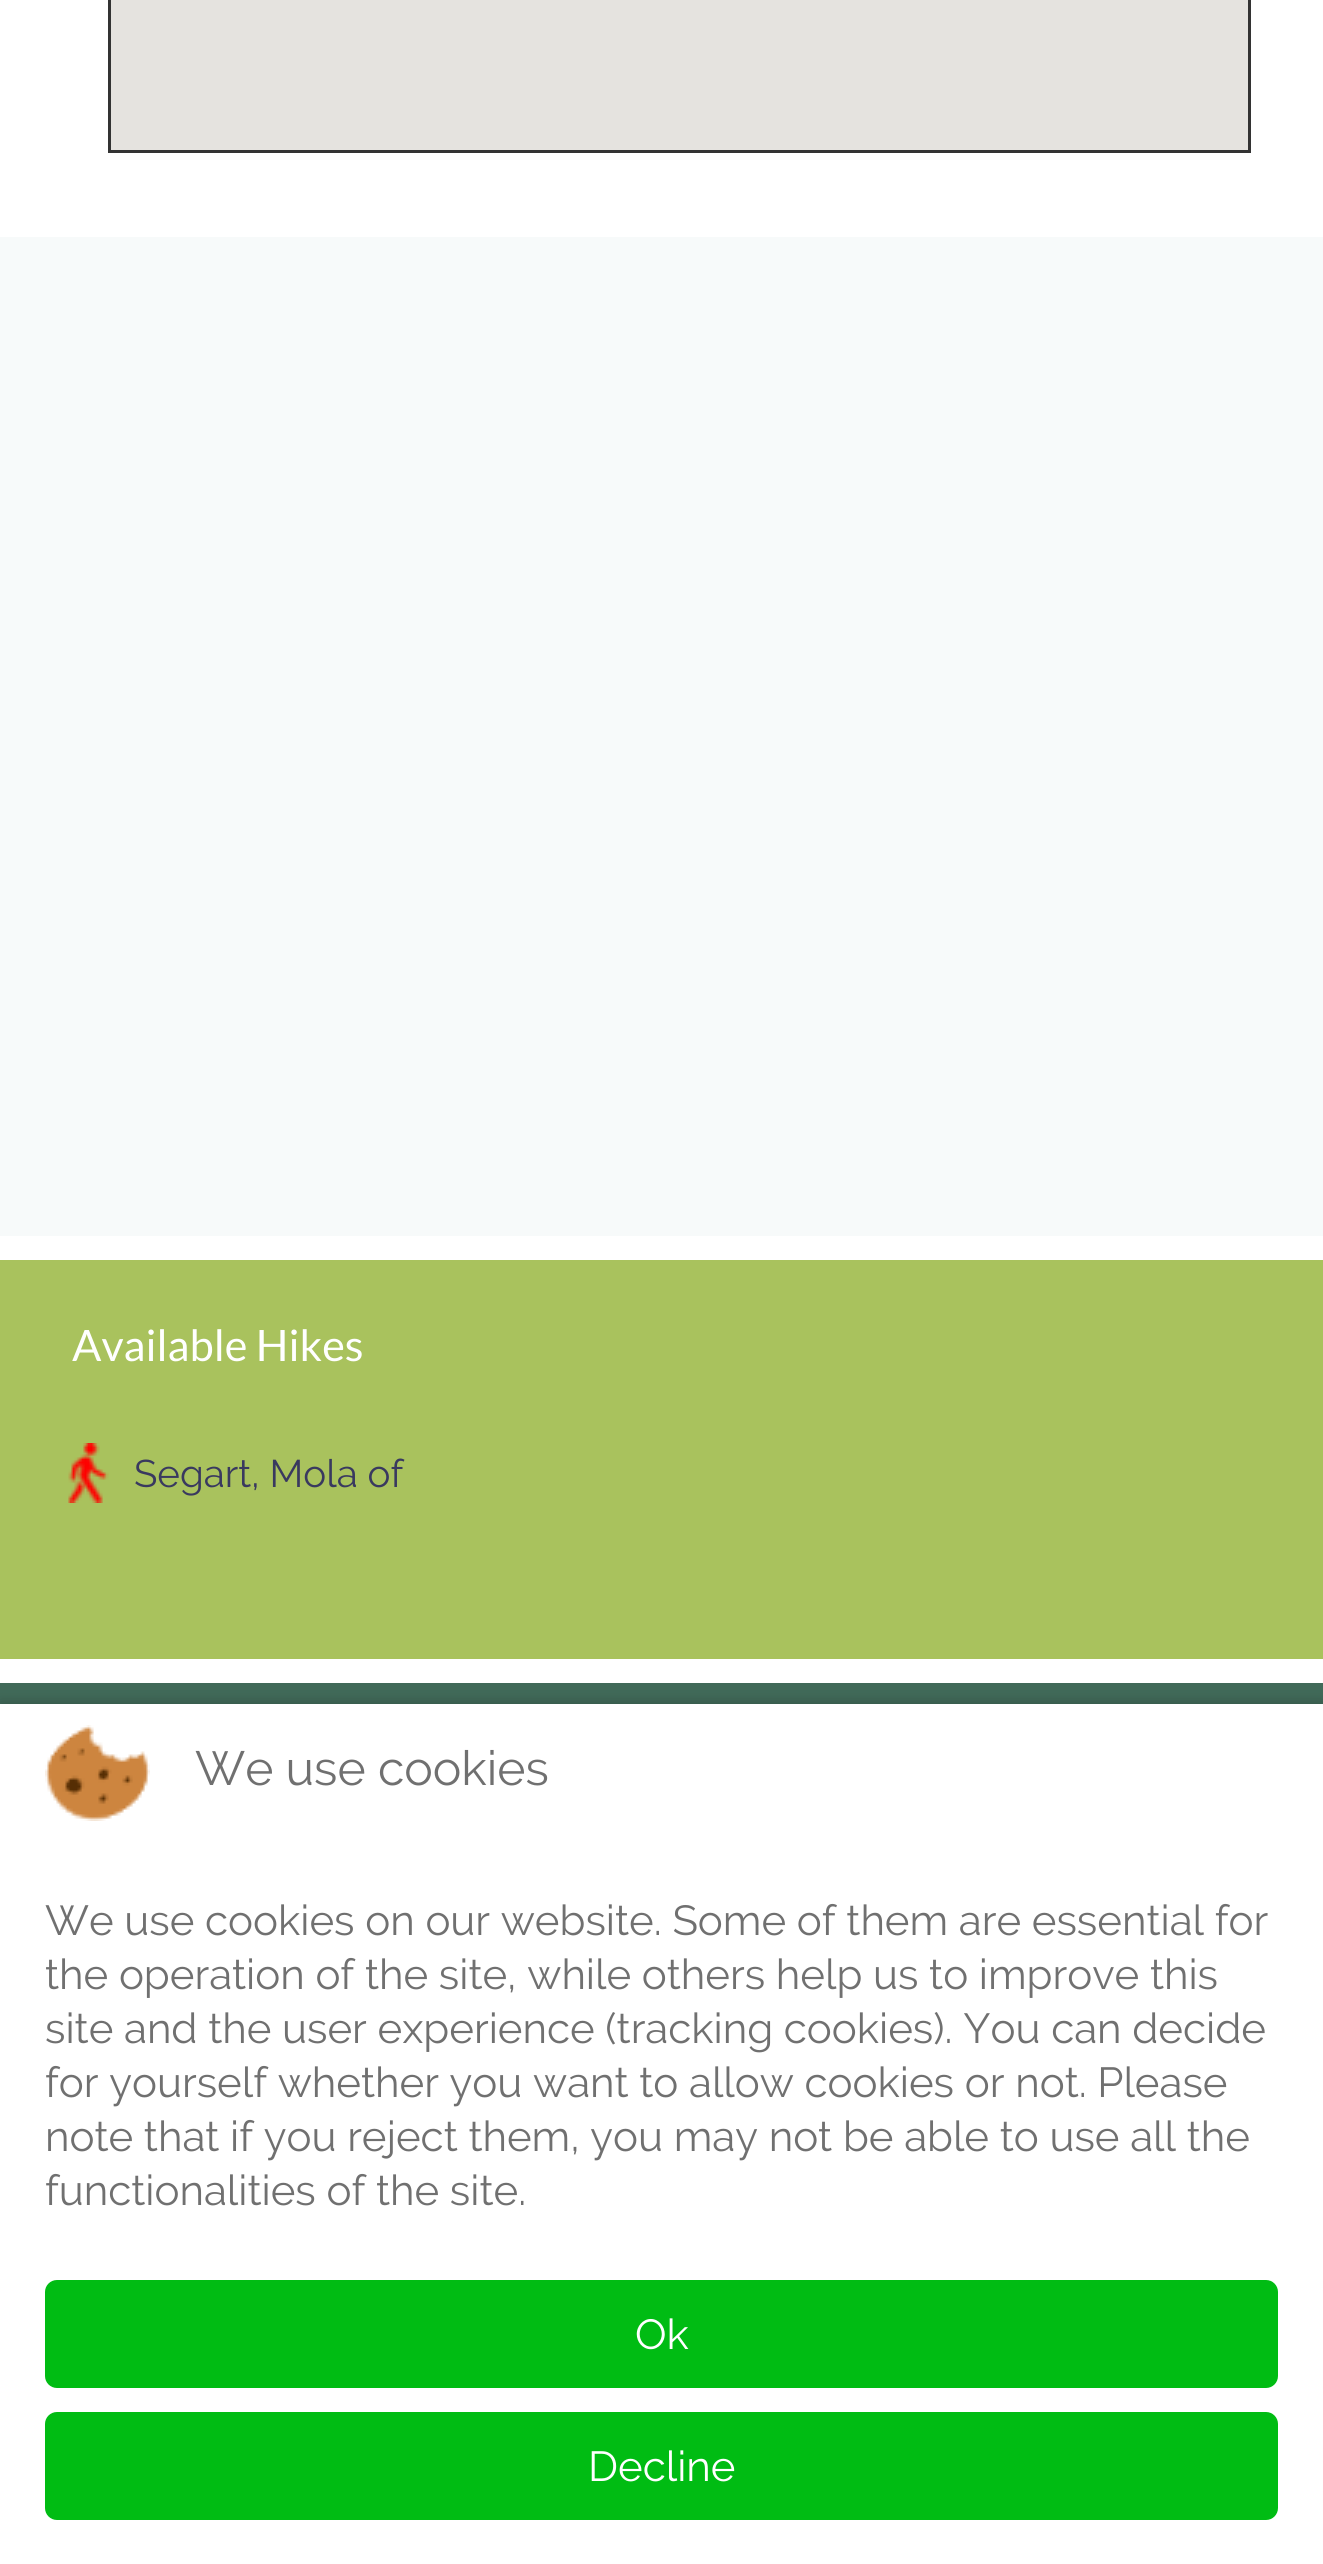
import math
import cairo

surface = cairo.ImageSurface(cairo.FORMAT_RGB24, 1323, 2564)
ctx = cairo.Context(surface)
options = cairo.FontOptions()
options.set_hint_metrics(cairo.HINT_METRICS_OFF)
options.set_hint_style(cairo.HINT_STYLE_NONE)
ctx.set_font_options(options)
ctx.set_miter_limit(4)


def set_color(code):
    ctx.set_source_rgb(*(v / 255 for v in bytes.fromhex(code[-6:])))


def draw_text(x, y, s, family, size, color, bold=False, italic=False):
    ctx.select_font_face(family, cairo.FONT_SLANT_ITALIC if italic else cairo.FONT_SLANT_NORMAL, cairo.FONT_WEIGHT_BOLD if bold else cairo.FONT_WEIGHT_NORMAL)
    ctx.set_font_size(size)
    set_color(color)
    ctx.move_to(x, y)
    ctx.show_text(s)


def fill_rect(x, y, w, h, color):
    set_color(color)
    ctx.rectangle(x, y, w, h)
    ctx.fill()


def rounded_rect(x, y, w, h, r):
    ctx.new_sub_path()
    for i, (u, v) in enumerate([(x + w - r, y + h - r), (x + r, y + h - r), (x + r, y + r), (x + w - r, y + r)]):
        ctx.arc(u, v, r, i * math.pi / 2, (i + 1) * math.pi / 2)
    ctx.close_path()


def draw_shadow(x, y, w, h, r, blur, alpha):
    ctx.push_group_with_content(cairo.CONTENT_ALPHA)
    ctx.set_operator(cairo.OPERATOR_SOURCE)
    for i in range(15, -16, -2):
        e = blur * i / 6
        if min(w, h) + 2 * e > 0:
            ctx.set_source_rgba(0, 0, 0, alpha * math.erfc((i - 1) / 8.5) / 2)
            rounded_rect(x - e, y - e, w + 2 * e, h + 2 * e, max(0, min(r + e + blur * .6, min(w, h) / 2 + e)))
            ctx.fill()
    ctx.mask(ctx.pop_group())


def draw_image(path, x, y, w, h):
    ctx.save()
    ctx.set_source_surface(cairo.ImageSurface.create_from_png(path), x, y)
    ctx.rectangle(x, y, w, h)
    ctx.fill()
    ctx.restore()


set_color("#ffffff")
ctx.paint()
ctx.rectangle(109.5, -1.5, 1140, 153)
set_color("#333333")
ctx.set_line_width(3)
ctx.stroke()
fill_rect(111, 0, 1137, 150, "#e5e3df")
fill_rect(0, 237, 1323, 999, "#f7fafa")
fill_rect(0, 1260, 1323, 399, "#a9c25d")
draw_text(72, 1361, "Available Hikes", "Lato", 43.25, "#ffffff")
draw_image("assets/img1.png", 68, 1443, 41, 60)
draw_text(134, 1487, "Segart, Mola of", "Raleway", 38.5, "#39395f")
fill_rect(0, 1683, 1323, 21, "#416a59")
set_color("#000000")
draw_shadow(0, 1704, 1323, 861, 0, 7.5, 0.25)
fill_rect(0, 1704, 1323, 860, "#ffffff")
draw_image("assets/img2.png", 45, 1725, 105, 96)
draw_text(195, 1785, "We use cookies", "Raleway", 48, "#707070")
draw_text(45, 1935, "We use cookies on our website. Some of them are essential for", "Raleway", 42, "#707070")
draw_text(45, 1989, "the operation of the site, while others help us to improve this", "Raleway", 42, "#707070")
draw_text(45, 2043, "site and the user experience (tracking cookies). You can decide", "Raleway", 42, "#707070")
draw_text(45, 2097, "for yourself whether you want to allow cookies or not. Please", "Raleway", 42, "#707070")
draw_text(45, 2151, "note that if you reject them, you may not be able to use all the", "Raleway", 42, "#707070")
draw_text(45, 2205, "functionalities of the site.", "Raleway", 42, "#707070")
set_color("#00bc13")
rounded_rect(45, 2280, 1233, 108, 12)
ctx.fill()
draw_text(635, 2349, "Ok", "Raleway", 42, "#ffffff")
set_color("#00bc13")
rounded_rect(45, 2412, 1233, 108, 12)
ctx.fill()
draw_text(588, 2481, "Decline", "Raleway", 42, "#ffffff")
surface.write_to_png("output.png")
